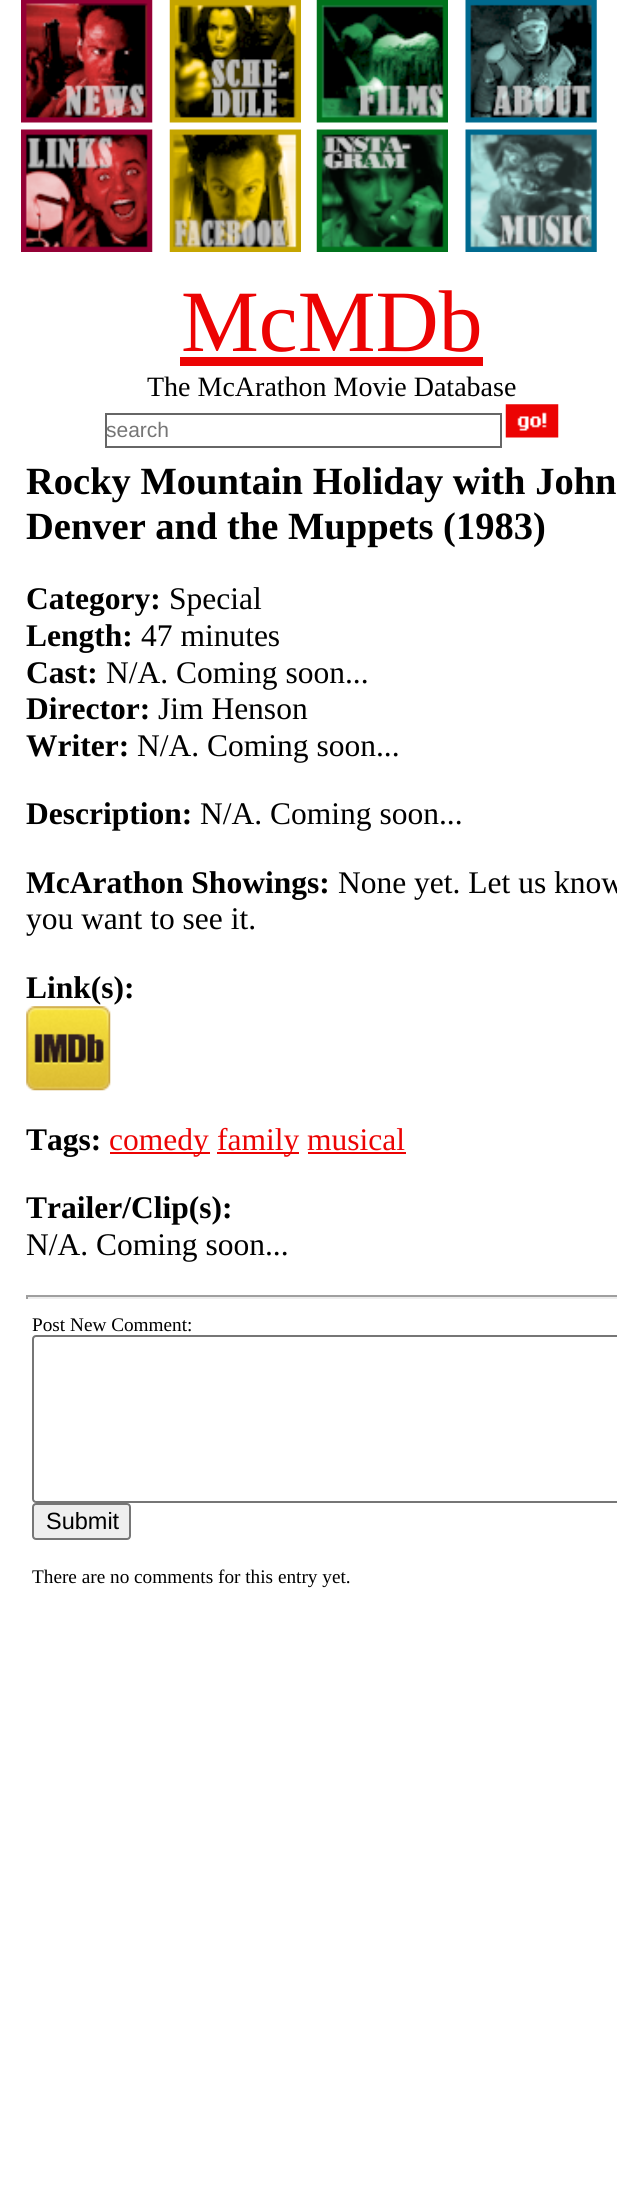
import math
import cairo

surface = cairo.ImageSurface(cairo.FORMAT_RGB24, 617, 2190)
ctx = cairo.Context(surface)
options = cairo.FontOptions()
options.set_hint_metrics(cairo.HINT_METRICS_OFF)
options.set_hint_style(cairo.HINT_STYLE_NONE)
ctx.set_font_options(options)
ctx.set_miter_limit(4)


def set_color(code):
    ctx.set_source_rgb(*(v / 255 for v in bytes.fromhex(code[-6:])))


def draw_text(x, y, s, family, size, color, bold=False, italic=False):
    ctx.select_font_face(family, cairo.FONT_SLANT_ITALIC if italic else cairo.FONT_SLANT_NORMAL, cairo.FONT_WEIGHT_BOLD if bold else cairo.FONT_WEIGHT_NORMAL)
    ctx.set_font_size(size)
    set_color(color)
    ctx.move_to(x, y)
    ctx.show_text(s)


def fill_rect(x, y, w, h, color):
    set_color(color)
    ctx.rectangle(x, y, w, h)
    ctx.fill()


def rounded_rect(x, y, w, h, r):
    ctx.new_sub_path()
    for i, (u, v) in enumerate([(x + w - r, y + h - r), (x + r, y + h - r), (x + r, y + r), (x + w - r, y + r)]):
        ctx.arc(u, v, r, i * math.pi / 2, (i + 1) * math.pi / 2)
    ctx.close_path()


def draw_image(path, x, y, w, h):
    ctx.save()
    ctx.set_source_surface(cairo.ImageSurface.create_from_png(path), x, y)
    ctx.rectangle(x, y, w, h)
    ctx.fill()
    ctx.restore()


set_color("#ffffff")
ctx.paint()
draw_image("assets/img1.png", 21, 0, 132, 123)
draw_image("assets/img2.png", 169, 0, 132, 123)
draw_image("assets/img3.png", 316, 0, 132, 123)
draw_image("assets/img4.png", 465, 0, 132, 123)
draw_image("assets/img5.png", 21, 129, 132, 123)
draw_image("assets/img6.png", 169, 129, 132, 123)
draw_image("assets/img7.png", 316, 129, 132, 123)
draw_image("assets/img8.png", 465, 129, 132, 123)
draw_text(181, 351, "McMDb", "Liberation Serif", 87.5, "#ec0303")
fill_rect(180, 357, 303, 9, "#ec0303")
draw_text(147, 396, "The McArathon Movie Database", "Liberation Serif", 28, "#000000")
ctx.rectangle(106, 414, 395, 33)
set_color("#666666")
ctx.stroke()
draw_text(106, 437, "search", "Liberation Sans", 21, "#757575")
draw_image("assets/img9.png", 505, 404, 54, 34)
draw_text(26, 494, "Rocky Mountain Holiday with John", "Liberation Serif", 38.5, "#000000", bold=True)
draw_text(26, 539, "Denver and the Muppets (1983)", "Liberation Serif", 38.5, "#000000", bold=True)
draw_text(26, 609, "Category:", "Liberation Serif", 31.5, "#000000", bold=True)
draw_text(169, 609, "Special", "Liberation Serif", 31.5, "#000000")
draw_text(26, 646, "Length:", "Liberation Serif", 31.5, "#000000", bold=True)
draw_text(141, 646, "47 minutes", "Liberation Serif", 31.5, "#000000")
draw_text(26, 683, "Cast:", "Liberation Serif", 31.5, "#000000", bold=True)
draw_text(106, 683, "N/A. Coming soon...", "Liberation Serif", 31.5, "#000000")
draw_text(26, 719, "Director:", "Liberation Serif", 31.5, "#000000", bold=True)
draw_text(158, 719, "Jim Henson", "Liberation Serif", 31.5, "#000000")
draw_text(26, 756, "Writer:", "Liberation Serif", 31.5, "#000000", bold=True)
draw_text(137, 756, "N/A. Coming soon...", "Liberation Serif", 31.5, "#000000")
draw_text(26, 824, "Description:", "Liberation Serif", 31.5, "#000000", bold=True)
draw_text(200, 824, "N/A. Coming soon...", "Liberation Serif", 31.5, "#000000")
draw_text(26, 893, "McArathon Showings:", "Liberation Serif", 31.5, "#000000", bold=True)
draw_text(338, 893, "None yet. Let us know", "Liberation Serif", 31.5, "#000000")
draw_text(26, 929, "you want to see it.", "Liberation Serif", 31.5, "#000000")
draw_text(26, 998, "Link(s):", "Liberation Serif", 31.5, "#000000", bold=True)
draw_image("assets/img10.png", 26, 1006, 85, 85)
draw_text(26, 1150, "Tags:", "Liberation Serif", 31.5, "#000000", bold=True)
fill_rect(110, 1152, 100, 2, "#ec0303")
draw_text(109, 1150, "comedy", "Liberation Serif", 31.5, "#ec0303")
fill_rect(217, 1152, 82, 2, "#ec0303")
draw_text(217, 1150, "family musical", "Liberation Serif", 31.5, "#ec0303")
fill_rect(308, 1152, 98, 2, "#ec0303")
draw_text(26, 1218, "Trailer/Clip(s):", "Liberation Serif", 31.5, "#000000", bold=True)
draw_text(26, 1255, "N/A. Coming soon...", "Liberation Serif", 31.5, "#000000")
fill_rect(26, 1295, 591, 2, "#9f9f9f")
fill_rect(26, 1297, 591, 2, "#eeeeee")
fill_rect(26, 1295, 2, 4, "#9f9f9f")
draw_text(32, 1331, "Post New Comment:", "Liberation Serif", 19.25, "#000000")
rounded_rect(33, 1336, 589, 166, 3)
set_color("#767676")
ctx.stroke()
set_color("#efefef")
rounded_rect(33, 1504, 97, 35, 3)
ctx.fill_preserve()
set_color("#767676")
ctx.stroke()
draw_text(46, 1529, "Submit", "Liberation Sans", 23.5, "#000000")
draw_text(32, 1583, "There are no comments for this entry yet.", "Liberation Serif", 19.25, "#000000")
surface.write_to_png("output.png")
